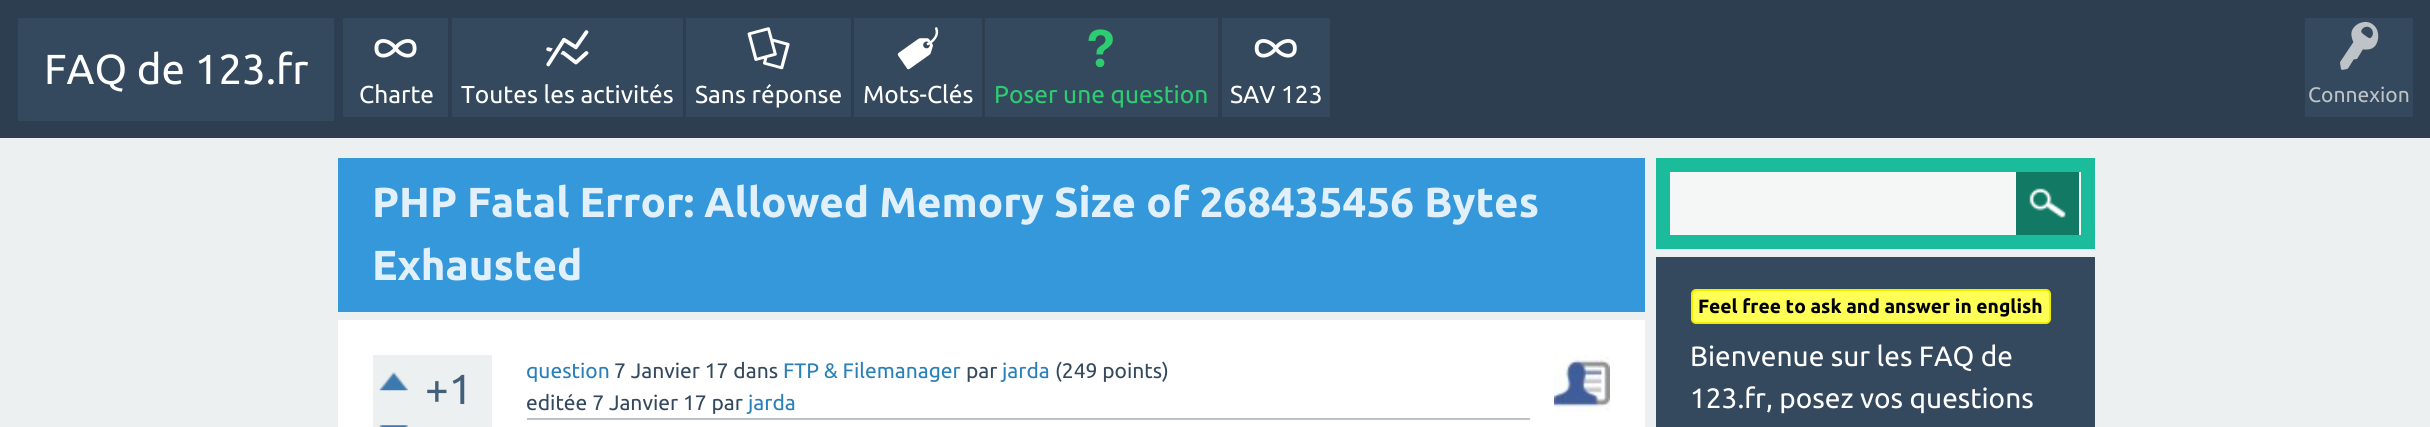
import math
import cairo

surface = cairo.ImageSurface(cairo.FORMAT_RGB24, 2430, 427)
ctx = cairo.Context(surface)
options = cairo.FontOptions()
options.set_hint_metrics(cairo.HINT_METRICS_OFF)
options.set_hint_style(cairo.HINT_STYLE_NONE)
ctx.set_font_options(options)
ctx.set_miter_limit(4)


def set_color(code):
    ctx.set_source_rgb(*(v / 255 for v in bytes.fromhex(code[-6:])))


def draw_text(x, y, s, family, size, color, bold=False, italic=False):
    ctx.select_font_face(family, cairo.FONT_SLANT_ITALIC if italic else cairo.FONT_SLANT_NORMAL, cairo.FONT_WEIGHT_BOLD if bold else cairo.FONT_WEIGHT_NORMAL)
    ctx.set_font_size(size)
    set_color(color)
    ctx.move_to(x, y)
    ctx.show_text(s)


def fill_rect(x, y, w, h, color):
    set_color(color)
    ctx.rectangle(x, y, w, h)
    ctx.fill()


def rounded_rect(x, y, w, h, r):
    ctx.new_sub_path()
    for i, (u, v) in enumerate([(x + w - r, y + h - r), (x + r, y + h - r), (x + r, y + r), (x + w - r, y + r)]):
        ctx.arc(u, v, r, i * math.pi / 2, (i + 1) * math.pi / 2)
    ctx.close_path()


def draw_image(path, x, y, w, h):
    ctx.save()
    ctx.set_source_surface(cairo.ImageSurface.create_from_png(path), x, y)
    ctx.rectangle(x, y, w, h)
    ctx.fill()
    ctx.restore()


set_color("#ecf0f1")
ctx.paint()
fill_rect(0, 0, 2430, 138, "#2c3e50")
fill_rect(18, 18, 316, 103, "#34495e")
draw_text(44, 84, "FAQ de 123.fr", "Ubuntu", 42, "#ffffff")
fill_rect(343, 18, 105, 99, "#34495e")
draw_image("assets/img1.png", 374, 39, 43, 19)
draw_text(359, 103, "Charte", "Ubuntu", 24.5, "#ffffff")
fill_rect(452, 18, 231, 99, "#34495e")
draw_image("assets/img2.png", 546, 30, 43, 37)
draw_text(461, 103, "Toutes les activités", "Ubuntu", 24.5, "#ffffff")
fill_rect(686, 18, 165, 99, "#34495e")
draw_image("assets/img3.png", 747, 27, 43, 43)
draw_text(695, 103, "Sans réponse", "Ubuntu", 24.5, "#ffffff")
fill_rect(854, 18, 128, 99, "#34495e")
draw_image("assets/img4.png", 897, 27, 42, 43)
draw_text(863, 103, "Mots-Clés", "Ubuntu", 24.5, "#ffffff")
fill_rect(985, 18, 233, 99, "#34495e")
draw_image("assets/img5.png", 1088, 29, 25, 39)
draw_text(994, 103, "Poser une question", "Ubuntu", 24.5, "#2ecc71")
fill_rect(1222, 18, 108, 99, "#34495e")
draw_image("assets/img6.png", 1254, 39, 43, 19)
draw_text(1230, 103, "SAV 123", "Ubuntu", 24.5, "#ffffff")
fill_rect(2305, 18, 108, 99, "#34495e")
draw_image("assets/img7.png", 2340, 21, 39, 49)
draw_text(2308, 102, "Connexion", "Ubuntu", 21, "#bdc3c7")
fill_rect(338, 158, 1307, 154, "#3498db")
draw_text(372, 217, "PHP Fatal Error: Allowed Memory Size of 268435456 Bytes", "Ubuntu", 42, "#e1f0fa", bold=True)
draw_text(372, 280, "Exhausted", "Ubuntu", 42, "#e1f0fa", bold=True)
fill_rect(338, 320, 1307, 107, "#ffffff")
fill_rect(373, 355, 119, 72, "#ecf0f1")
draw_image("assets/img8.png", 379, 372, 29, 19)
draw_image("assets/img9.png", 379, 425, 29, 2)
draw_text(425, 404, "+1", "Ubuntu", 42, "#445f7a")
fill_rect(527, 418, 1003, 2, "#bdc3c7")
draw_text(526, 378, "question", "Ubuntu", 21, "#2980b9")
draw_text(614, 378, "7 Janvier 17 dans", "Ubuntu", 21, "#34495e")
draw_text(783, 378, "FTP & Filemanager", "Ubuntu", 21, "#2980b9")
draw_text(966, 378, "par", "Ubuntu", 21, "#34495e")
draw_text(1002, 378, "jarda", "Ubuntu", 21, "#2980b9")
draw_text(1055, 378, "(249 points)", "Ubuntu", 21, "#34495e")
draw_text(526, 410, "editée 7 Janvier 17 par", "Ubuntu", 21, "#34495e")
draw_text(748, 410, "jarda", "Ubuntu", 21, "#2980b9")
draw_image("assets/img10.png", 1554, 355, 56, 57)
fill_rect(1656, 158, 439, 91, "#1abc9c")
fill_rect(1670, 172, 411, 63, "#f5f7f7")
fill_rect(2016, 172, 63, 63, "#117964")
draw_image("assets/img11.png", 2029, 188, 37, 30)
fill_rect(1656, 257, 439, 170, "#34495e")
set_color("#ffff55")
rounded_rect(1692, 290, 358, 33, 4)
ctx.fill_preserve()
set_color("#eeee00")
ctx.stroke()
draw_text(1698, 313, "Feel free to ask and answer in english", "Ubuntu", 19.25, "#000000", bold=True)
draw_text(1690, 366, "Bienvenue sur les FAQ de", "Ubuntu", 28, "#ffffff")
draw_text(1690, 408, "123.fr, posez vos questions", "Ubuntu", 28, "#ffffff")
surface.write_to_png("output.png")
